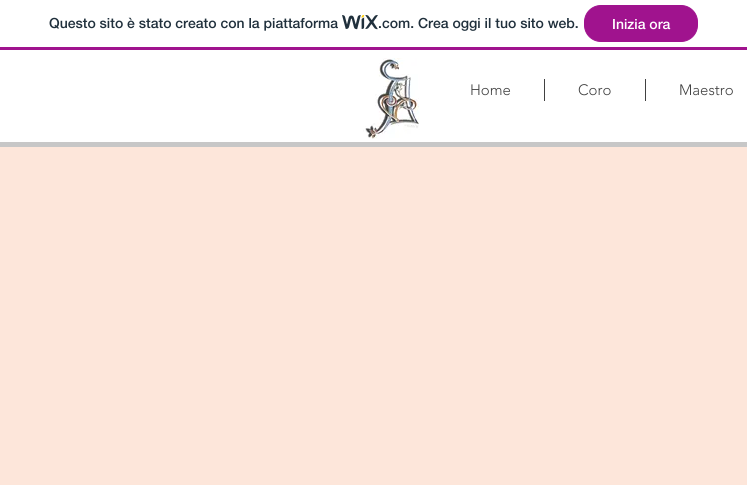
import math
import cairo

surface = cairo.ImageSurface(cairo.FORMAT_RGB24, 747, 485)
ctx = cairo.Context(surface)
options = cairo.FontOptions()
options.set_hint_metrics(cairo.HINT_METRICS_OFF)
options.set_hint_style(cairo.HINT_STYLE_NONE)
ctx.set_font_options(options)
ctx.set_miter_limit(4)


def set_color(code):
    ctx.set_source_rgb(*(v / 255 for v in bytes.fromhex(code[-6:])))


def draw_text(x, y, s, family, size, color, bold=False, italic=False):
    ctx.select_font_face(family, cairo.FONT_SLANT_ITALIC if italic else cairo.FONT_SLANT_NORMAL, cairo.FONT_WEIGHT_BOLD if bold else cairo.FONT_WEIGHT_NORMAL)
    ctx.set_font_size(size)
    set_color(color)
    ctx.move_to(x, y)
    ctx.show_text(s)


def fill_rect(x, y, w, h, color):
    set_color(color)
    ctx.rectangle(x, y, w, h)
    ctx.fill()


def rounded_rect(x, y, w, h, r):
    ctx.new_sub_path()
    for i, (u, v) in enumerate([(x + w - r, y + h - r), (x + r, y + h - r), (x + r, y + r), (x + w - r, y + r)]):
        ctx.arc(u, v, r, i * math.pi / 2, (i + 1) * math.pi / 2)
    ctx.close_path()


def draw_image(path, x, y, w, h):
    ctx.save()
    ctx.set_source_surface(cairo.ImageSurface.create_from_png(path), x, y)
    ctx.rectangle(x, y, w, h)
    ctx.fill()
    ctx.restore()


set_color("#ffffff")
ctx.paint()
fill_rect(0, 47, 747, 3, "#a0138e")
draw_text(49, 28, "Questo sito è stato creato con la piattaforma", "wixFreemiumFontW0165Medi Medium", 14, "#20303c")
draw_image("assets/img1.png", 342, 15, 36, 15)
draw_text(378, 28, ".com. Crea oggi il tuo sito web.", "wixFreemiumFontW0165Medi Medium", 14, "#20303c")
set_color("#a0138e")
rounded_rect(584.5, 5.5, 113, 36, 16.5)
ctx.fill_preserve()
ctx.set_line_width(1)
ctx.stroke()
draw_text(612, 29, "Inizia ora", "wixFreemiumFontW0165Medi Medium", 14, "#ffffff")
draw_image("assets/img2.png", 363, 58, 57, 81)
draw_text(470, 95, "Home", "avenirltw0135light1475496 Light", 15, "#414141")
fill_rect(544, 79, 1, 22, "#414141")
draw_text(578, 95, "Coro", "avenirltw0135light1475496 Light", 15, "#414141")
fill_rect(645, 79, 1, 22, "#414141")
draw_text(679, 95, "Maestro", "avenirltw0135light1475496 Light", 15, "#414141")
fill_rect(0, 142, 747, 5, "#c7c7c7")
fill_rect(0, 147, 747, 338, "#fde6da")
surface.write_to_png("output.png")
